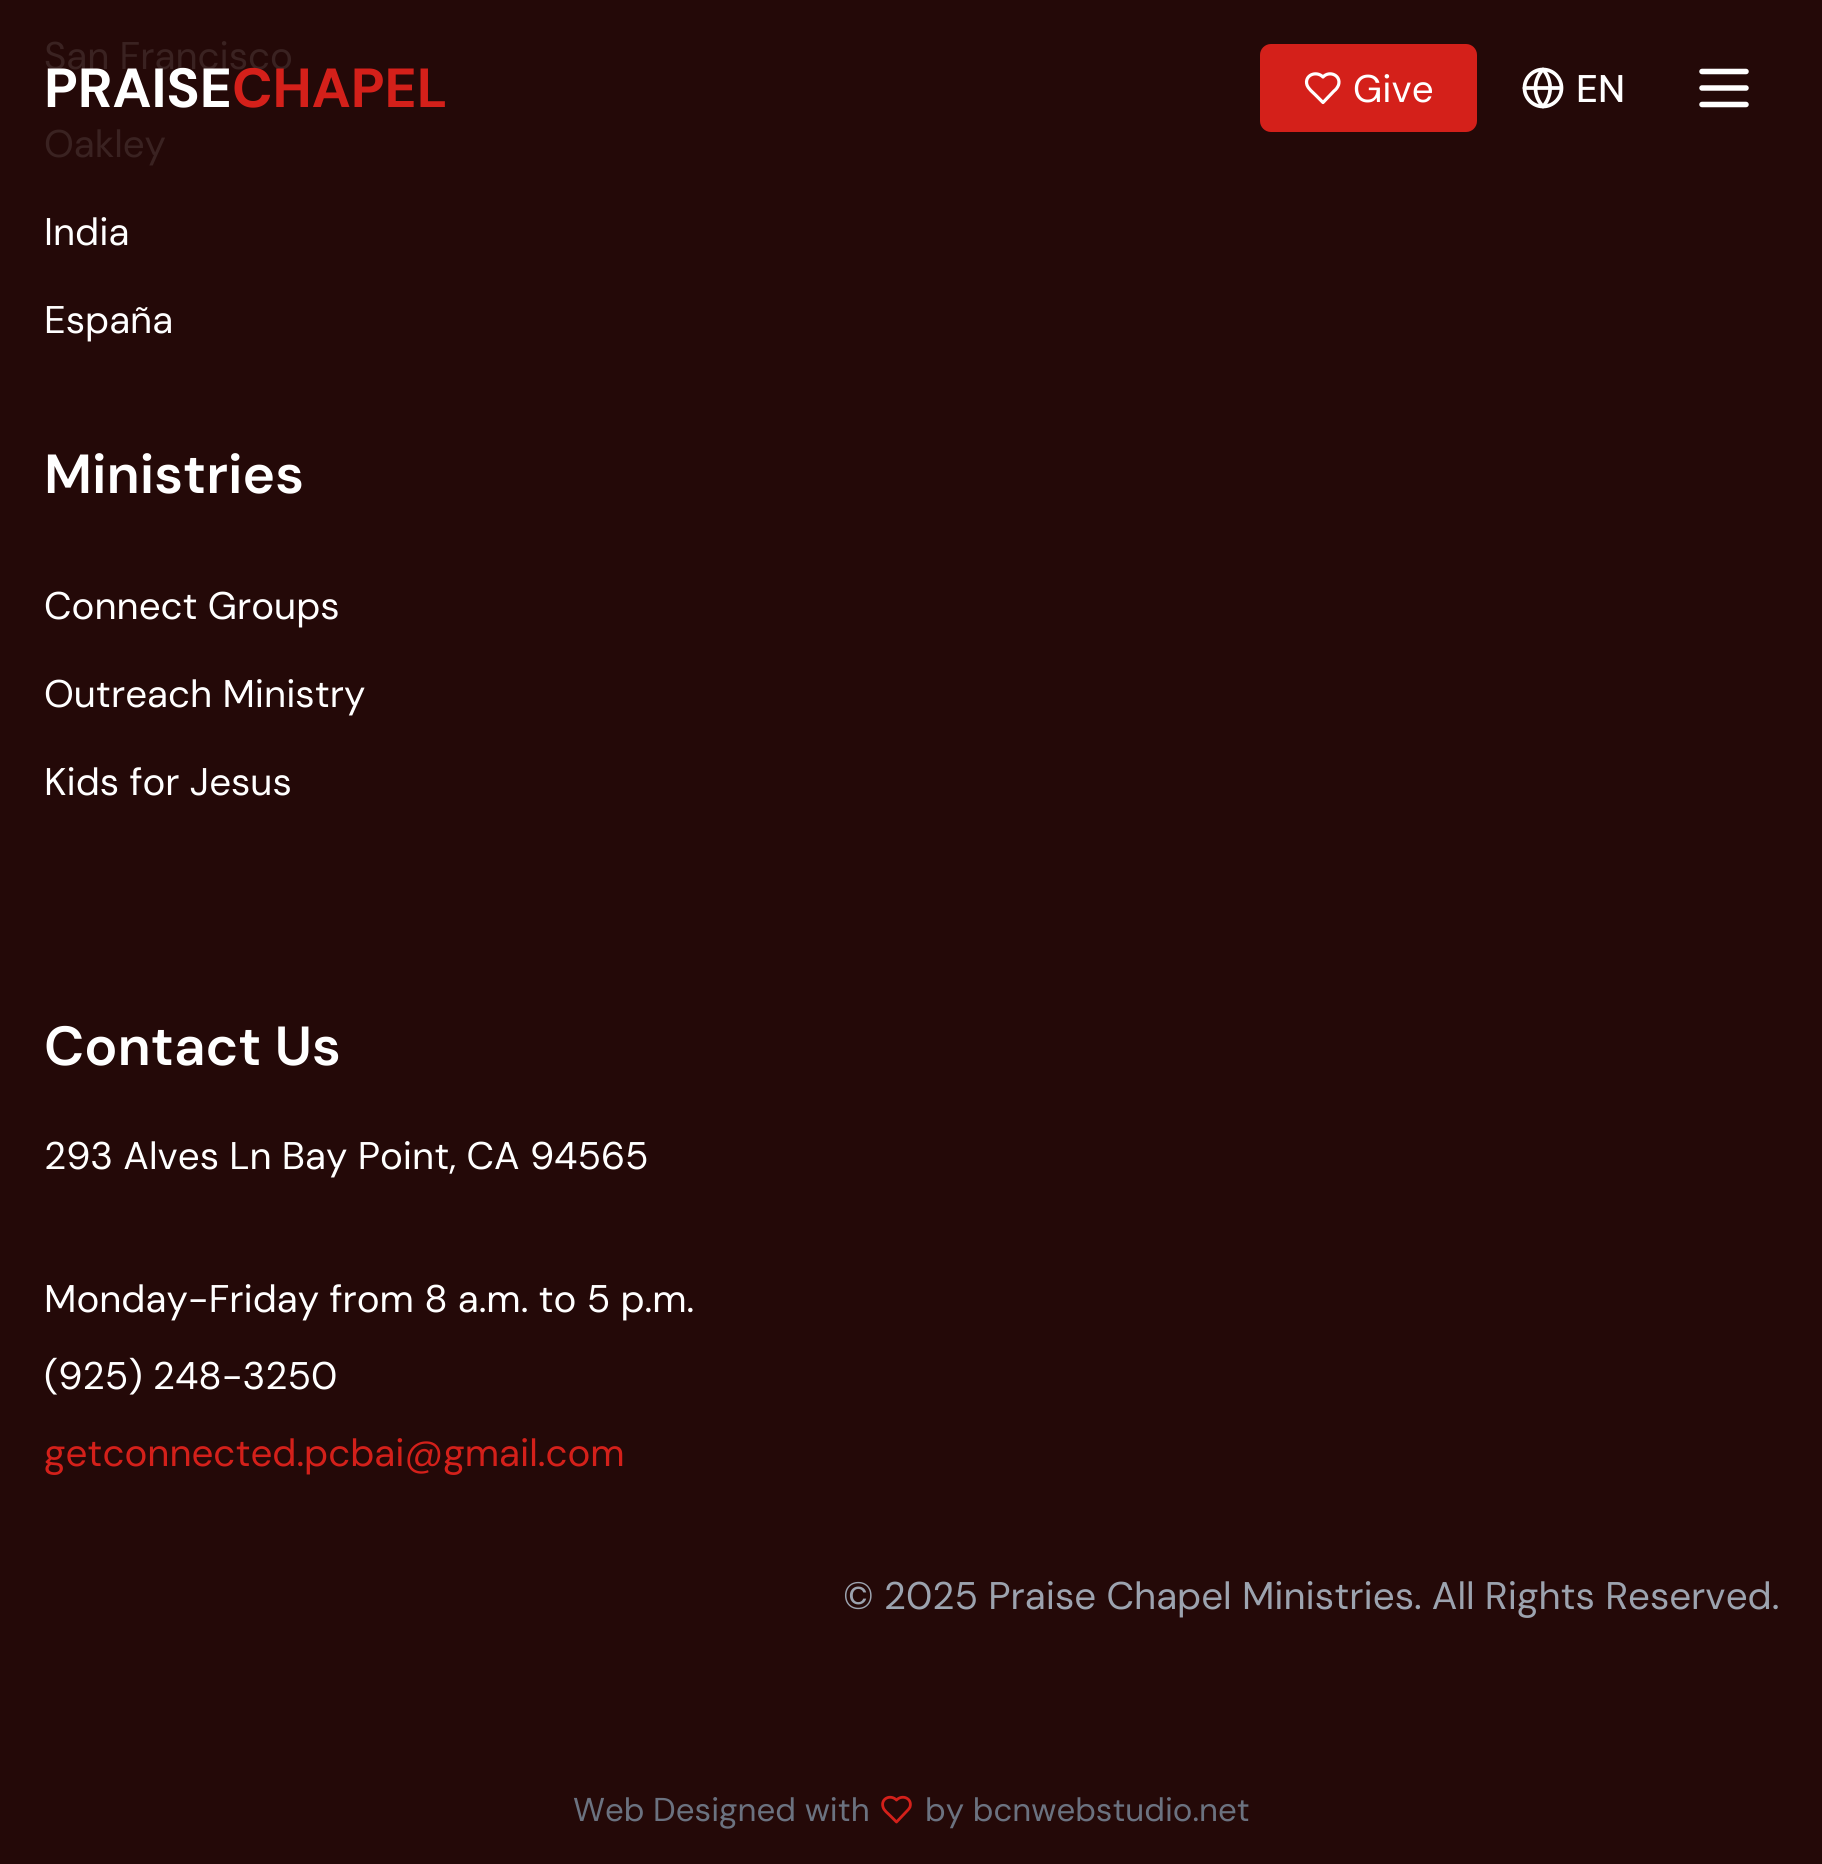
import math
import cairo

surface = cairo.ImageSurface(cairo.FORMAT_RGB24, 1822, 1864)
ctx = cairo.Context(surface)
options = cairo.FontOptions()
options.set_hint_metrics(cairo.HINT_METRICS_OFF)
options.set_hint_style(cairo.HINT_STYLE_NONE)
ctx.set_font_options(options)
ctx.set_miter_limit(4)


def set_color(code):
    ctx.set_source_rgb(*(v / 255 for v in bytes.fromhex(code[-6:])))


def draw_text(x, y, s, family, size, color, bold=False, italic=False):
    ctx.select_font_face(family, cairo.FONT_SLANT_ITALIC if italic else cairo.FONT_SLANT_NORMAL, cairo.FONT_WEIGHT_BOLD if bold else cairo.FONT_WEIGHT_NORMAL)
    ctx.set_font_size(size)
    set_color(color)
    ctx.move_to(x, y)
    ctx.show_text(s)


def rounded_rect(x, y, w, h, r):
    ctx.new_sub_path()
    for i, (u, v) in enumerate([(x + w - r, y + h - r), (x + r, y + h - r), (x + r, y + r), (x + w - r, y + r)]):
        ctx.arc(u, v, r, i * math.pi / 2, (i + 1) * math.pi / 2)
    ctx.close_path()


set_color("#240908")
ctx.paint()
draw_text(44, 69, "San Francisco", "DM Sans", 38.5, "#3a2221")
draw_text(44, 157, "Oakley", "DM Sans", 38.5, "#3a2221")
draw_text(44, 245, "India", "DM Sans", 38.5, "#ffffff")
draw_text(44, 333, "España", "DM Sans", 38.5, "#ffffff")
draw_text(44, 493, "Ministries", "DM Sans SemiBold", 55, "#ffffff")
draw_text(44, 619, "Connect Groups", "DM Sans", 38.5, "#ffffff")
draw_text(44, 707, "Outreach Ministry", "DM Sans", 38.5, "#ffffff")
draw_text(44, 795, "Kids for Jesus", "DM Sans", 38.5, "#ffffff")
draw_text(44, 1065, "Contact Us", "DM Sans SemiBold", 55, "#ffffff")
draw_text(44, 1169, "293 Alves Ln Bay Point, CA 94565", "DM Sans", 38.5, "#ffffff")
draw_text(44, 1312, "Monday-Friday from 8 a.m. to 5 p.m.", "DM Sans", 38.5, "#ffffff")
draw_text(44, 1389, "(925) 248-3250", "DM Sans", 38.5, "#ffffff")
draw_text(44, 1466, "getconnected.pcbai@gmail.com", "DM Sans", 38.5, "#d4201a")
draw_text(843, 1609, "© 2025 Praise Chapel Ministries. All Rights Reserved.", "DM Sans", 38.5, "#9ca3af")
draw_text(573, 1821, "Web Designed with", "DM Sans", 33, "#6b7280")
ctx.new_path()
ctx.move_to(906, 1812)
ctx.curve_to(907.5, 1810.5, 909, 1809, 910, 1807)
ctx.curve_to(912.5, 1798.5, 902.5, 1794, 896.5, 1800)
ctx.curve_to(890.5, 1794, 880.5, 1798.5, 883, 1807)
ctx.curve_to(884, 1810.5, 887.5, 1813, 890, 1815.5)
ctx.line_to(896.5, 1822)
ctx.close_path()
set_color("#d4201a")
ctx.set_line_width(2.8)
ctx.set_line_cap(cairo.LINE_CAP_ROUND)
ctx.set_line_join(cairo.LINE_JOIN_ROUND)
ctx.stroke()
draw_text(925, 1821, "by bcnwebstudio.net", "DM Sans", 33, "#6b7280")
draw_text(44, 107, "PRAISE", "DM Sans", 55, "#ffffff", bold=True)
draw_text(232, 107, "CHAPEL", "DM Sans", 55, "#d4201a", bold=True)
rounded_rect(1260, 44, 217, 88, 11)
ctx.fill()
ctx.new_path()
ctx.move_to(1334, 91)
ctx.curve_to(1336, 89.5, 1337.5, 87.5, 1338.5, 85)
ctx.curve_to(1341.5, 75.5, 1329.5, 70, 1323, 77)
ctx.curve_to(1316, 70, 1304, 75.5, 1307, 85)
ctx.curve_to(1308.5, 89, 1312.5, 92, 1315.5, 95)
ctx.line_to(1323, 102.5)
ctx.close_path()
set_color("#ffffff")
ctx.set_line_width(3.2)
ctx.stroke()
draw_text(1353, 102, "Give", "DM Sans", 38.5, "#ffffff")
ctx.new_path()
ctx.arc(1543, 88, 18.5, 0, 2 * math.pi)
ctx.set_line_width(3.7)
ctx.set_line_cap(cairo.LINE_CAP_BUTT)
ctx.set_line_join(cairo.LINE_JOIN_MITER)
ctx.stroke()
ctx.new_path()
ctx.move_to(1543, 69.5)
ctx.curve_to(1533, 80, 1533, 96, 1543, 106.5)
ctx.curve_to(1552.5, 96, 1552.5, 80, 1543, 69.5)
ctx.move_to(1524.5, 88)
ctx.line_to(1561, 88)
ctx.set_line_cap(cairo.LINE_CAP_ROUND)
ctx.set_line_join(cairo.LINE_JOIN_ROUND)
ctx.stroke()
draw_text(1576, 102, "EN", "DM Sans Medium", 38.5, "#ffffff")
ctx.new_path()
ctx.move_to(1702, 88)
ctx.line_to(1746, 88)
ctx.move_to(1702, 71.5)
ctx.line_to(1746, 71.5)
ctx.move_to(1702, 104.5)
ctx.line_to(1746, 104.5)
ctx.set_line_width(5.5)
ctx.stroke()
surface.write_to_png("output.png")
